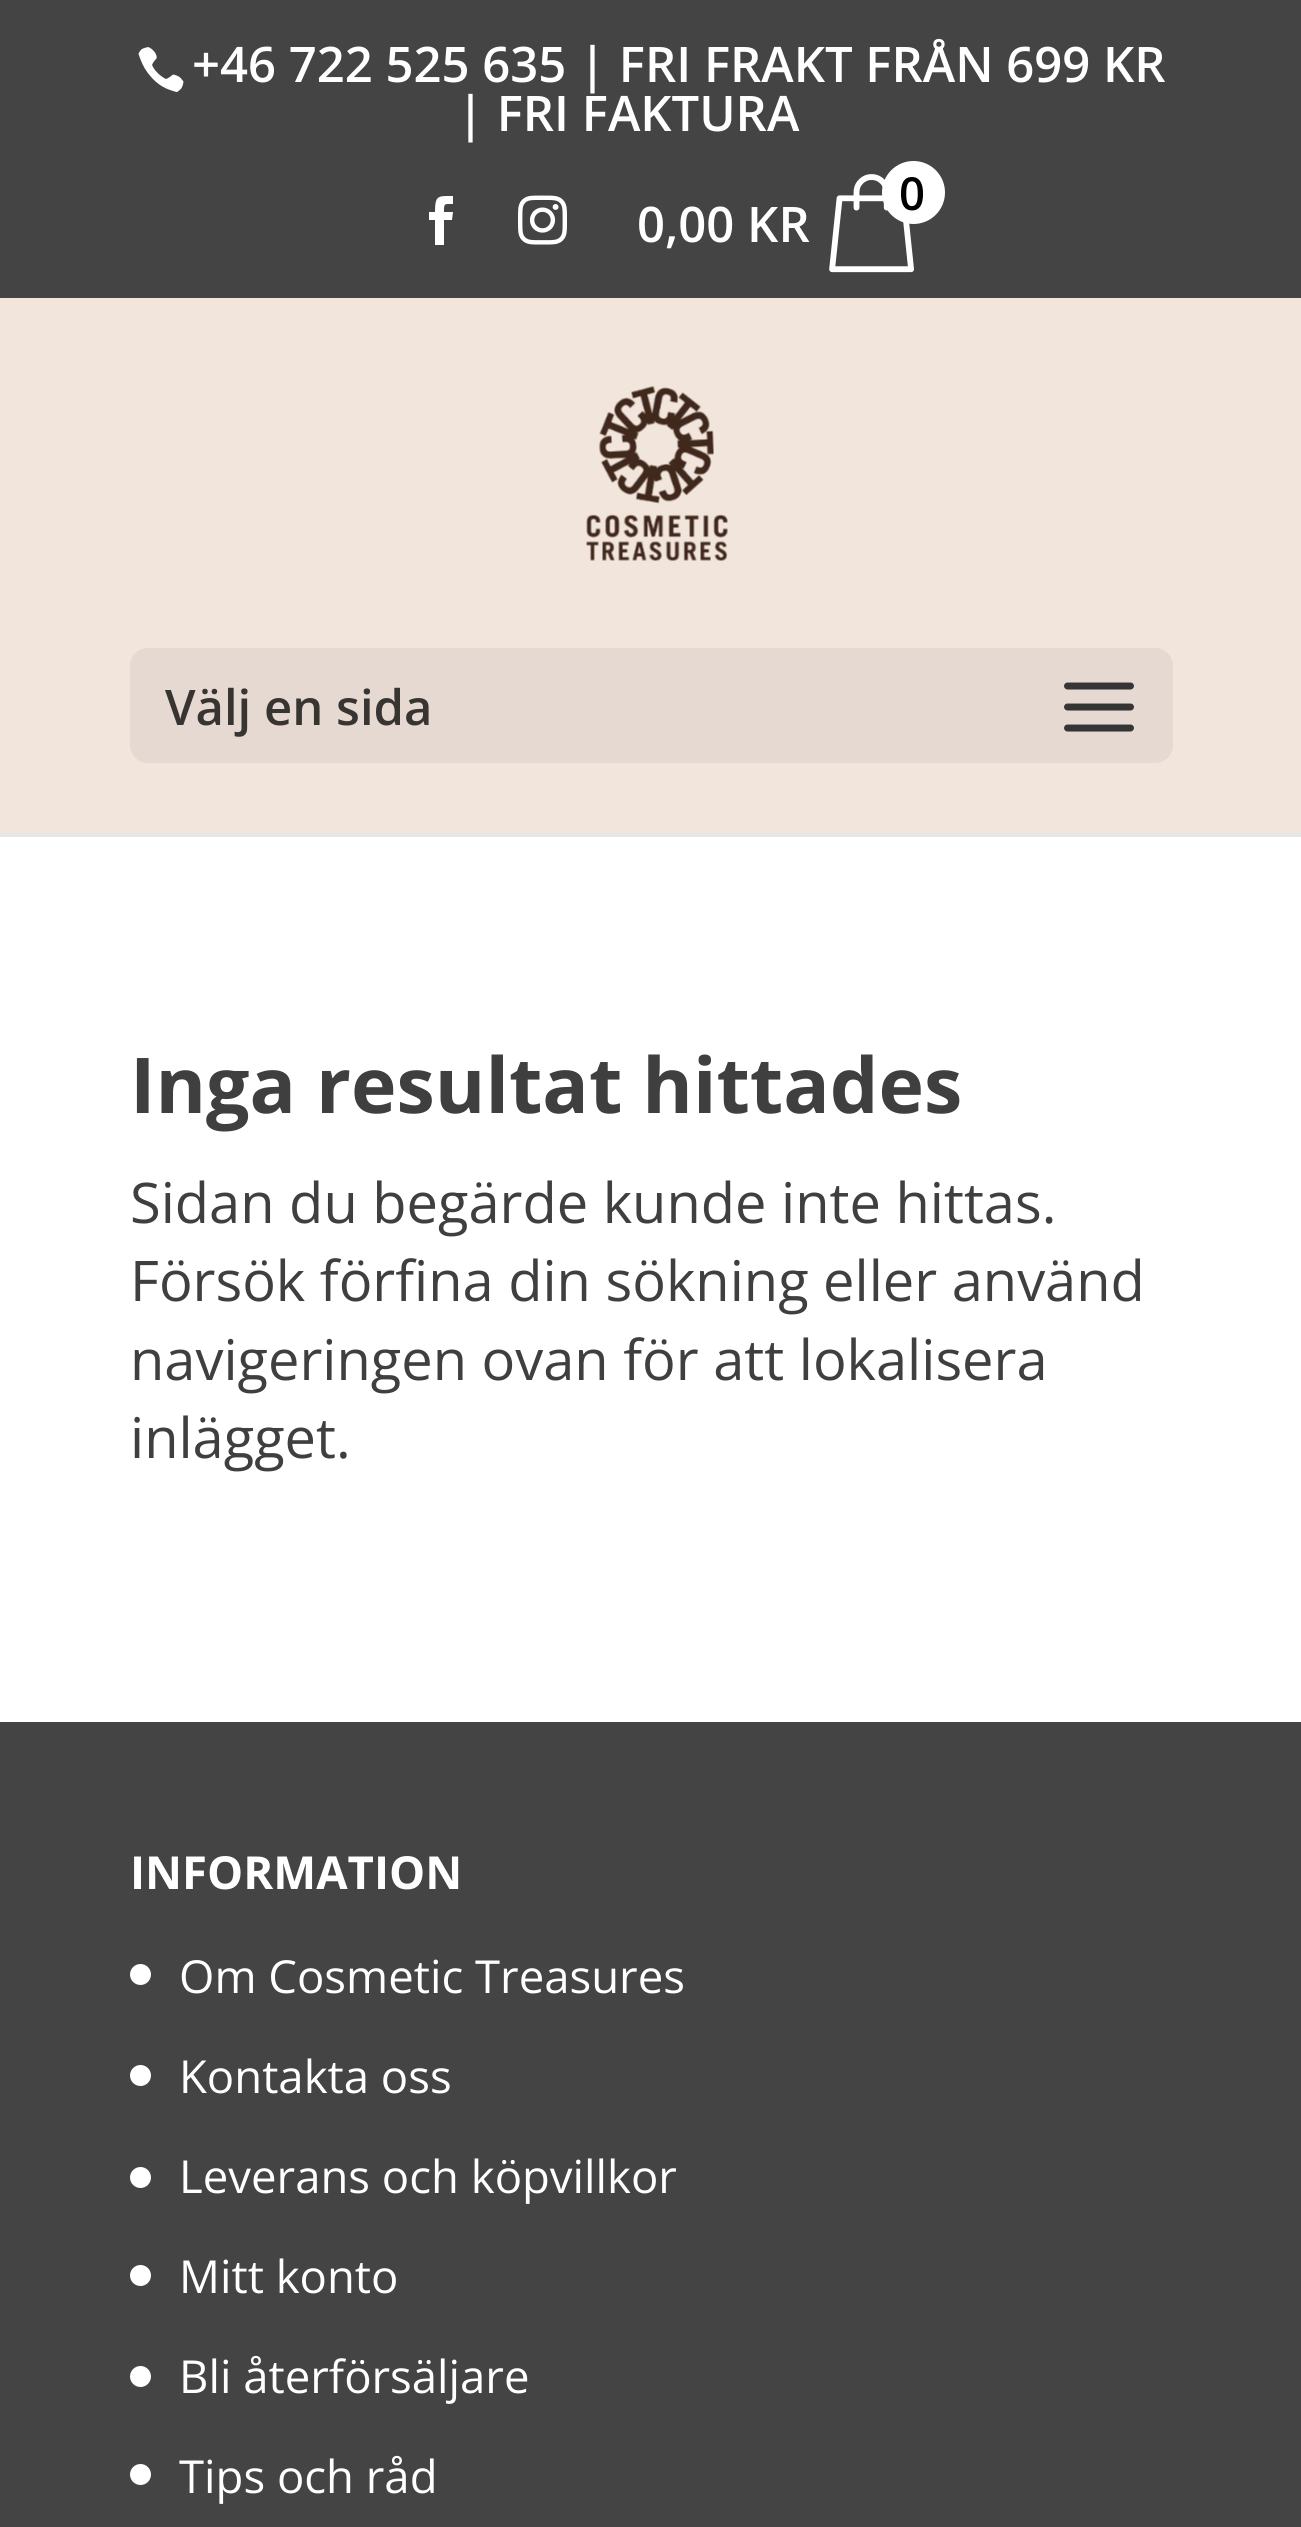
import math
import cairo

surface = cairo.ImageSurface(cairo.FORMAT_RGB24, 1301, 2527)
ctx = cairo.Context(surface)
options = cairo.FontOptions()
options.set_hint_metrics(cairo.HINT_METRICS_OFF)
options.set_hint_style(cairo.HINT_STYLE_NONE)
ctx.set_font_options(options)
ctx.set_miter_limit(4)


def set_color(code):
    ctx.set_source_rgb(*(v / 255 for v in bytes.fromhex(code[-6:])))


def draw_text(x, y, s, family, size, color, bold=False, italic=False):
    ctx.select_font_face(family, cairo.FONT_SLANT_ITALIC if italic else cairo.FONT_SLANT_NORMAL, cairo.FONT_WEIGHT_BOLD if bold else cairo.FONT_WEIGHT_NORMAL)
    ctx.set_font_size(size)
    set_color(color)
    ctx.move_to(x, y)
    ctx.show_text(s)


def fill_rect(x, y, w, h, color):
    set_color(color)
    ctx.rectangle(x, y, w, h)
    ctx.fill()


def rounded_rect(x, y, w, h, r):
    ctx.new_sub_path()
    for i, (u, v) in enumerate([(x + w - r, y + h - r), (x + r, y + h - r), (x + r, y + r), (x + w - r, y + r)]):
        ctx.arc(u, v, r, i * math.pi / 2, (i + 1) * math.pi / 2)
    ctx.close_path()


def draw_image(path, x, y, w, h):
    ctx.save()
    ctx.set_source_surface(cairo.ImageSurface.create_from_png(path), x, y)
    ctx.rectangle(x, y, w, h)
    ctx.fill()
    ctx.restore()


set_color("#ffffff")
ctx.paint()
fill_rect(0, 0, 1301, 298, "#444444")
draw_image("assets/img1.png", 138, 47, 46, 45)
draw_text(192, 82, "+46 722 525 635 | FRI FRAKT FRÅN 699 KR", "Open Sans SemiBold", 49, "#ffffff")
draw_text(457, 131, "| FRI FAKTURA", "Open Sans SemiBold", 49, "#ffffff")
ctx.new_path()
ctx.move_to(435, 245)
ctx.line_to(444, 245)
ctx.line_to(444, 220)
ctx.line_to(452, 220)
ctx.line_to(453, 212)
ctx.line_to(444, 212)
ctx.curve_to(444, 203, 444, 204, 453, 204)
ctx.line_to(453, 196)
ctx.curve_to(438, 196, 435, 195, 435, 212)
ctx.line_to(429, 212)
ctx.line_to(429, 220)
ctx.line_to(435, 220)
ctx.close_path()
ctx.fill()
draw_image("assets/img2.png", 518, 195, 49, 50)
draw_image("assets/img3.png", 829, 174, 85, 99)
ctx.arc(913.5, 192.5, 31.5, 0, 2 * math.pi)
ctx.fill()
draw_text(899, 210, "0", "Open Sans SemiBold", 45.5, "#000000")
draw_text(637, 242, "0,00 KR", "Open Sans SemiBold", 49, "#ffffff")
fill_rect(0, 833, 1301, 4, "#e6e6e6")
fill_rect(0, 298, 1301, 535, "#f2e5dc")
draw_image("assets/img4.png", 586, 385, 142, 176)
set_color("#e6d9d1")
rounded_rect(130, 648, 1043, 115, 18)
ctx.fill()
draw_text(165, 725, "Välj en sida", "Open Sans SemiBold", 49, "#373432")
draw_image("assets/img5.png", 1064, 682, 70, 50)
draw_text(130, 1113, "Inga resultat hittades", "Open Sans", 77, "#3f3f3f", bold=True)
draw_text(130, 1223, "Sidan du begärde kunde inte hittas.", "Open Sans", 56, "#3f3f3f")
draw_text(130, 1301, "Försök förfina din sökning eller använd", "Open Sans", 56, "#3f3f3f")
draw_text(130, 1380, "navigeringen ovan för att lokalisera", "Open Sans", 56, "#3f3f3f")
draw_text(130, 1458, "inlägget.", "Open Sans", 56, "#3f3f3f")
fill_rect(0, 1722, 1301, 805, "#444444")
draw_text(130, 1889, "INFORMATION", "Open Sans", 45.5, "#ffffff", bold=True)
ctx.new_path()
ctx.arc(140.5, 1974.5, 10.5, 0, 2 * math.pi)
ctx.fill()
draw_text(179, 1993, "Om Cosmetic Treasures", "Open Sans", 45.5, "#ffffff")
ctx.new_path()
ctx.arc(140.5, 2075.5, 10.5, 0, 2 * math.pi)
ctx.fill()
draw_text(179, 2093, "Kontakta oss", "Open Sans", 45.5, "#ffffff")
ctx.new_path()
ctx.arc(140.5, 2177.5, 10.5, 0, 2 * math.pi)
ctx.fill()
draw_text(179, 2193, "Leverans och köpvillkor", "Open Sans", 45.5, "#ffffff")
ctx.new_path()
ctx.arc(140.5, 2275.5, 10.5, 0, 2 * math.pi)
ctx.fill()
draw_text(179, 2293, "Mitt konto", "Open Sans", 45.5, "#ffffff")
ctx.new_path()
ctx.arc(140.5, 2376.5, 10.5, 0, 2 * math.pi)
ctx.fill()
draw_text(179, 2393, "Bli återförsäljare", "Open Sans", 45.5, "#ffffff")
ctx.new_path()
ctx.arc(140.5, 2474.5, 10.5, 0, 2 * math.pi)
ctx.fill()
draw_text(179, 2493, "Tips och råd", "Open Sans", 45.5, "#ffffff")
surface.write_to_png("output.png")
